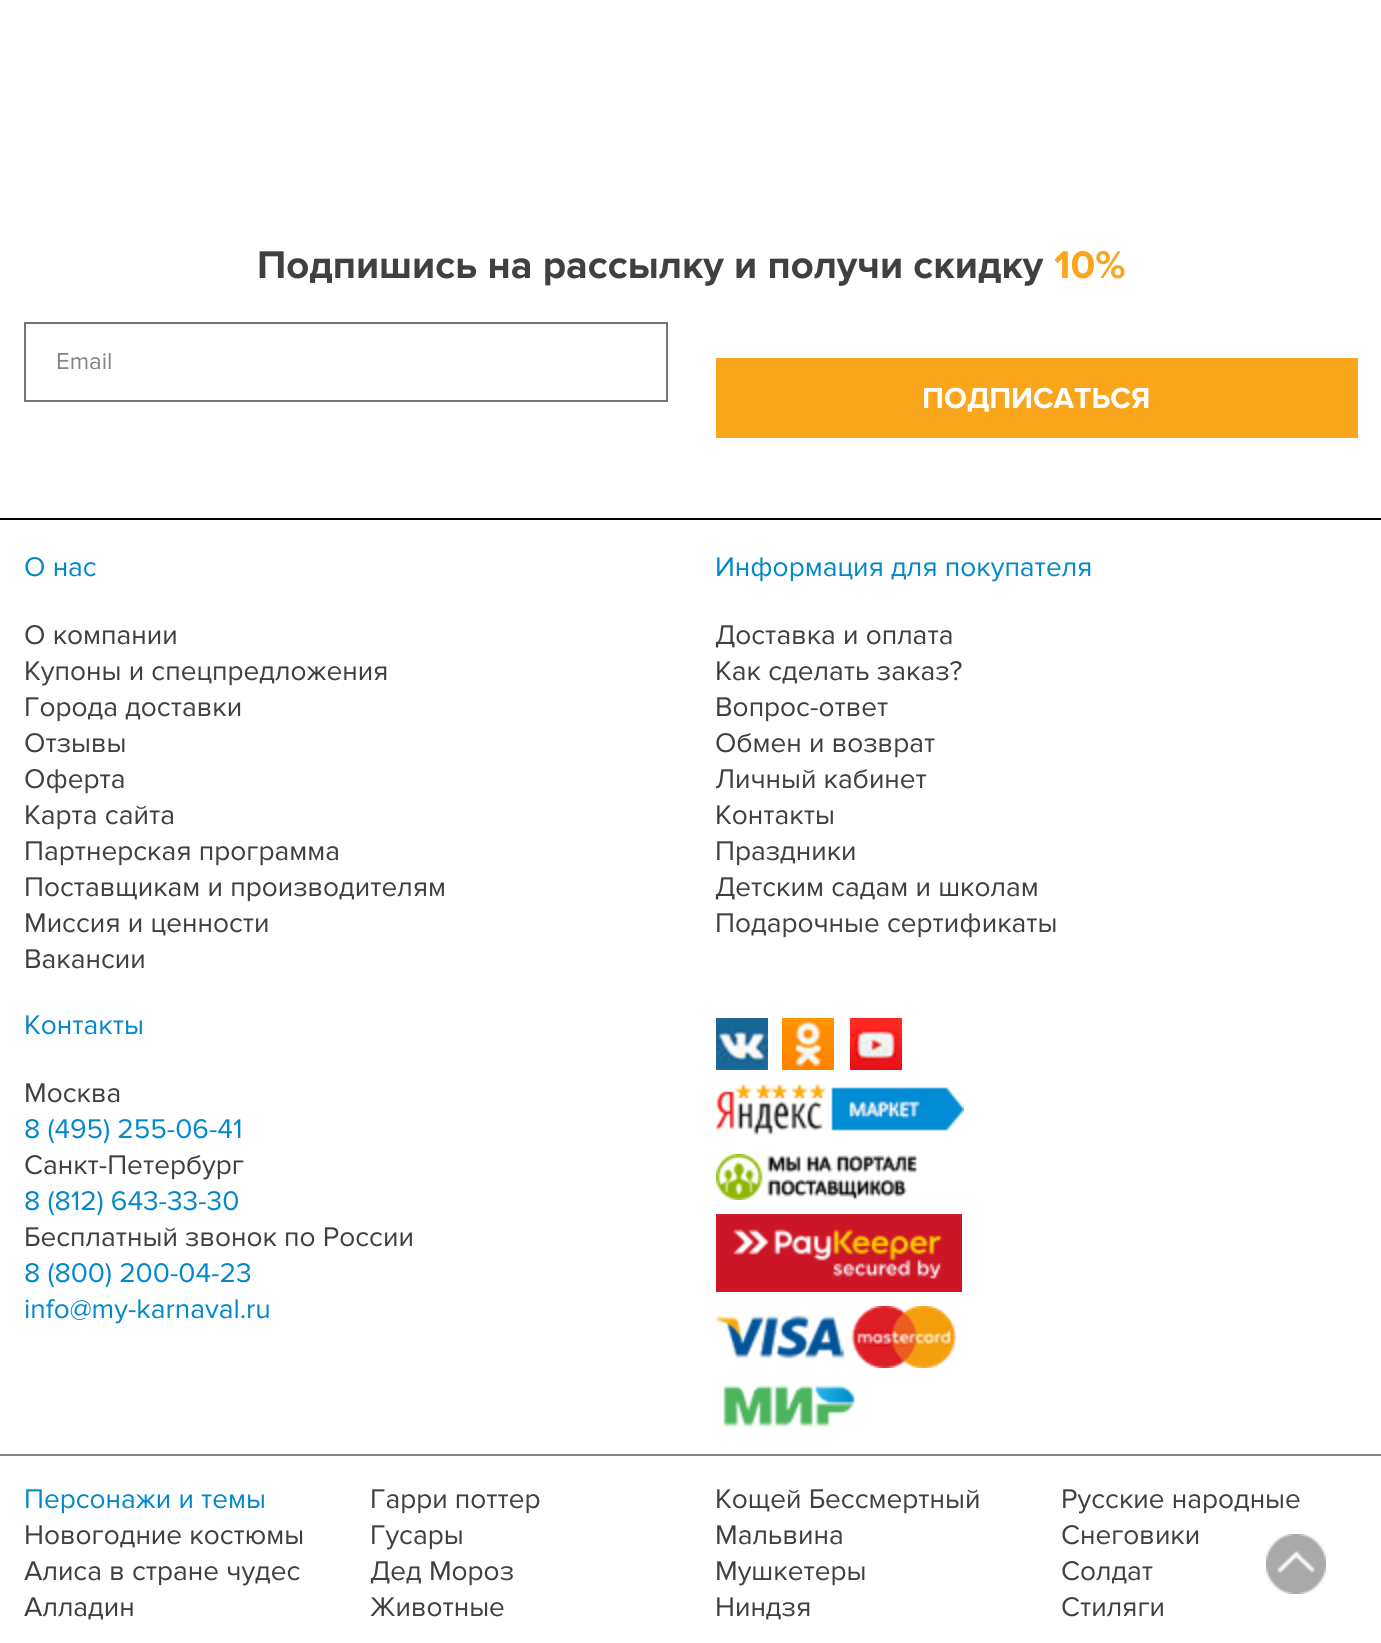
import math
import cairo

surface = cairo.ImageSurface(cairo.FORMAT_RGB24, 1381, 1643)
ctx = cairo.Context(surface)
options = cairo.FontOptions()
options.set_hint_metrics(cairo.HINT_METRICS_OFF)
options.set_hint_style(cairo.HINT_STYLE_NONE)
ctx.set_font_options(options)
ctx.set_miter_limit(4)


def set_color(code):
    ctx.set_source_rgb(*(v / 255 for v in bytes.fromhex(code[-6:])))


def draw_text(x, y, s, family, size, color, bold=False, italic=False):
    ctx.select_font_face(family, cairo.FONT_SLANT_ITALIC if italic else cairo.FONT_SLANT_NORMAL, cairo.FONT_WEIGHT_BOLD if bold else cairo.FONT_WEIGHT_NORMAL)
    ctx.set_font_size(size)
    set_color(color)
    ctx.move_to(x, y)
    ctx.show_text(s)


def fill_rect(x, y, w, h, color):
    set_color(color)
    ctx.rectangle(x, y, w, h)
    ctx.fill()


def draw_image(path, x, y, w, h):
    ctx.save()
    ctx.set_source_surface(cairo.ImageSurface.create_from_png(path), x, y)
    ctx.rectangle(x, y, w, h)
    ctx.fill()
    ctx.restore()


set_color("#ffffff")
ctx.paint()
draw_text(257, 278, "Подпишись на рассылку и получи скидку", "Proxima Nova", 40, "#404040", bold=True)
draw_text(1054, 278, "10%", "Proxima Nova", 40, "#f9a61c", bold=True)
ctx.rectangle(25, 323, 642, 78)
set_color("#757575")
ctx.stroke()
draw_text(56, 369, "Email", "Proxima Nova", 24, "#848484")
fill_rect(716, 358, 642, 80, "#f9a61c")
draw_text(922, 408, "ПОДПИСАТЬСЯ", "Proxima Nova", 30, "#ffffff", bold=True)
fill_rect(0, 518, 1381, 2, "#000000")
draw_text(24, 576, "О нас", "Proxima Nova", 28, "#0388cb")
draw_text(24, 644, "О компании", "Proxima Nova", 28, "#404040")
draw_text(24, 680, "Купоны и спецпредложения", "Proxima Nova", 28, "#404040")
draw_text(24, 716, "Города доставки", "Proxima Nova", 28, "#404040")
draw_text(24, 752, "Отзывы", "Proxima Nova", 28, "#404040")
draw_text(24, 788, "Оферта", "Proxima Nova", 28, "#404040")
draw_text(24, 824, "Карта сайта", "Proxima Nova", 28, "#404040")
draw_text(24, 860, "Партнерская программа", "Proxima Nova", 28, "#404040")
draw_text(24, 896, "Поставщикам и производителям", "Proxima Nova", 28, "#404040")
draw_text(24, 932, "Миссия и ценности", "Proxima Nova", 28, "#404040")
draw_text(24, 968, "Вакансии", "Proxima Nova", 28, "#404040")
draw_text(715, 576, "Информация для покупателя", "Proxima Nova", 28, "#0388cb")
draw_text(715, 644, "Доставка и оплата", "Proxima Nova", 28, "#404040")
draw_text(715, 680, "Как сделать заказ?", "Proxima Nova", 28, "#404040")
draw_text(715, 716, "Вопрос-ответ", "Proxima Nova", 28, "#404040")
draw_text(715, 752, "Обмен и возврат", "Proxima Nova", 28, "#404040")
draw_text(715, 788, "Личный кабинет", "Proxima Nova", 28, "#404040")
draw_text(715, 824, "Контакты", "Proxima Nova", 28, "#404040")
draw_text(715, 860, "Праздники", "Proxima Nova", 28, "#404040")
draw_text(715, 896, "Детским садам и школам", "Proxima Nova", 28, "#404040")
draw_text(715, 932, "Подарочные сертификаты", "Proxima Nova", 28, "#404040")
draw_text(24, 1034, "Контакты", "Proxima Nova", 28, "#0388cb")
draw_text(24, 1102, "Москва", "Proxima Nova", 28, "#404040")
draw_text(24, 1138, "8 (495) 255-06-41", "Proxima Nova", 28, "#0388cb")
draw_text(24, 1174, "Санкт-Петербург", "Proxima Nova", 28, "#404040")
draw_text(24, 1210, "8 (812) 643-33-30", "Proxima Nova", 28, "#0388cb")
draw_text(24, 1246, "Бесплатный звонок по России", "Proxima Nova", 28, "#404040")
draw_text(24, 1282, "8 (800) 200-04-23", "Proxima Nova", 28, "#0388cb")
draw_text(24, 1318, "info@my-karnaval.ru", "Proxima Nova", 28, "#0388cb")
draw_image("assets/img1.png", 716, 1018, 52, 52)
draw_image("assets/img2.png", 782, 1018, 52, 52)
draw_image("assets/img3.png", 850, 1018, 52, 52)
draw_image("assets/img4.png", 716, 1084, 248, 51)
draw_image("assets/img5.png", 716, 1154, 202, 46)
draw_image("assets/img6.png", 716, 1214, 246, 78)
draw_image("assets/img7.png", 716, 1306, 240, 62)
draw_image("assets/img8.png", 723, 1385, 132, 42)
fill_rect(0, 1454, 1381, 2, "#848484")
draw_text(24, 1508, "Персонажи и темы", "Proxima Nova", 28, "#0388cb")
draw_text(370, 1508, "Гарри поттер", "Proxima Nova", 28, "#404040")
draw_text(715, 1508, "Кощей Бессмертный", "Proxima Nova", 28, "#404040")
draw_text(1061, 1508, "Русские народные", "Proxima Nova", 28, "#404040")
draw_text(24, 1544, "Новогодние костюмы", "Proxima Nova", 28, "#404040")
draw_text(370, 1544, "Гусары", "Proxima Nova", 28, "#404040")
draw_text(715, 1544, "Мальвина", "Proxima Nova", 28, "#404040")
draw_text(1061, 1544, "Снеговики", "Proxima Nova", 28, "#404040")
draw_text(24, 1580, "Алиса в стране чудес", "Proxima Nova", 28, "#404040")
draw_text(370, 1580, "Дед Мороз", "Proxima Nova", 28, "#404040")
draw_text(715, 1580, "Мушкетеры", "Proxima Nova", 28, "#404040")
draw_text(1061, 1580, "Солдат", "Proxima Nova", 28, "#404040")
draw_text(24, 1616, "Алладин", "Proxima Nova", 28, "#404040")
draw_text(370, 1616, "Животные", "Proxima Nova", 28, "#404040")
draw_text(715, 1616, "Ниндзя", "Proxima Nova", 28, "#404040")
draw_text(1061, 1616, "Стиляги", "Proxima Nova", 28, "#404040")
draw_image("assets/img9.png", 1266, 1534, 60, 60)
surface.write_to_png("output.png")
